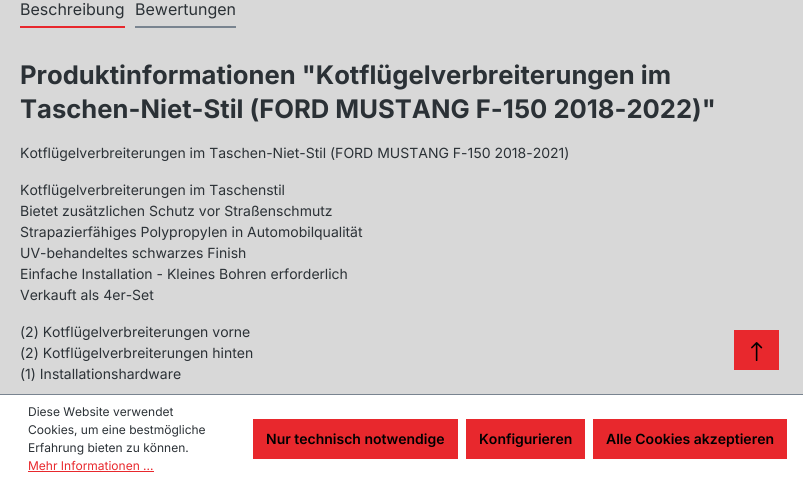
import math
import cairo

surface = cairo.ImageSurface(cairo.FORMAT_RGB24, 803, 483)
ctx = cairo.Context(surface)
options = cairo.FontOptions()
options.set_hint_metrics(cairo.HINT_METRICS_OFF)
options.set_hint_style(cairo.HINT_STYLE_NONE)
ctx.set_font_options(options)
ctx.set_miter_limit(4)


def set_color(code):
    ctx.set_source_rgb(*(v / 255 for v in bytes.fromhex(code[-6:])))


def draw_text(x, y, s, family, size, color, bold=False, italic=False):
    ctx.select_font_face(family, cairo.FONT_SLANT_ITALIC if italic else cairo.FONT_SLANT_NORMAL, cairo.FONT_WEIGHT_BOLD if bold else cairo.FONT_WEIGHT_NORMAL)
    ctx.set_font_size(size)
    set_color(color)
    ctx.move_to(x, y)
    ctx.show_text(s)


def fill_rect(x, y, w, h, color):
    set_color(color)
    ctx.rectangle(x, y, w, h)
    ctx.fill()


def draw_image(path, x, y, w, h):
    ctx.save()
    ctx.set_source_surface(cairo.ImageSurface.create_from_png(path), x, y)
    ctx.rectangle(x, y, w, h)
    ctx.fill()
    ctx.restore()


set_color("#d8d8d8")
ctx.paint()
fill_rect(20, 26, 105, 2, "#e8282d")
draw_text(20, 15, "Beschreibung", "Inter", 16, "#2b3136")
fill_rect(135, 26, 101, 2, "#798490")
draw_text(135, 15, "Bewertungen", "Inter", 16, "#2b3136")
draw_text(20, 84, "Produktinformationen \"Kotflügelverbreiterungen im", "Inter", 25.6, "#2b3136", bold=True)
draw_text(20, 118, "Taschen-Niet-Stil (FORD MUSTANG F-150 2018-2022)\"", "Inter", 25.6, "#2b3136", bold=True)
draw_text(20, 158, "Kotflügelverbreiterungen im Taschen-Niet-Stil (FORD MUSTANG F-150 2018-2021)", "Inter", 14, "#2b3136")
draw_text(20, 195, "Kotflügelverbreiterungen im Taschenstil", "Inter", 14, "#2b3136")
draw_text(20, 216, "Bietet zusätzlichen Schutz vor Straßenschmutz", "Inter", 14, "#2b3136")
draw_text(20, 237, "Strapazierfähiges Polypropylen in Automobilqualität", "Inter", 14, "#2b3136")
draw_text(20, 258, "UV-behandeltes schwarzes Finish", "Inter", 14, "#2b3136")
draw_text(20, 279, "Einfache Installation - Kleines Bohren erforderlich", "Inter", 14, "#2b3136")
draw_text(20, 300, "Verkauft als 4er-Set", "Inter", 14, "#2b3136")
draw_text(20, 337, "(2) Kotflügelverbreiterungen vorne", "Inter", 14, "#2b3136")
draw_text(20, 358, "(2) Kotflügelverbreiterungen hinten", "Inter", 14, "#2b3136")
draw_text(20, 379, "(1) Installationshardware", "Inter", 14, "#2b3136")
fill_rect(734, 330, 45, 40, "#e8282d")
draw_image("assets/img1.png", 751, 342, 12, 19)
fill_rect(0, 395, 803, 88, "#ffffff")
fill_rect(0, 394, 803, 1, "#798490")
draw_text(28, 416, "Diese Website verwendet", "Inter", 12, "#2b3136")
draw_text(28, 434, "Cookies, um eine bestmögliche", "Inter", 12, "#2b3136")
draw_text(28, 452, "Erfahrung bieten zu können.", "Inter", 12, "#2b3136")
draw_text(28, 470, "Mehr Informationen ...", "Inter", 12, "#e8282d")
fill_rect(28, 471, 126, 1, "#e8282d")
fill_rect(253, 419, 205, 40, "#e8282d")
draw_text(266, 444, "Nur technisch notwendige", "Inter SemiBold", 14, "#000000")
fill_rect(466, 419, 119, 40, "#e8282d")
draw_text(479, 444, "Konfigurieren", "Inter SemiBold", 14, "#000000")
fill_rect(593, 419, 194, 40, "#e8282d")
draw_text(606, 444, "Alle Cookies akzeptieren", "Inter SemiBold", 14, "#000000")
surface.write_to_png("output.png")
